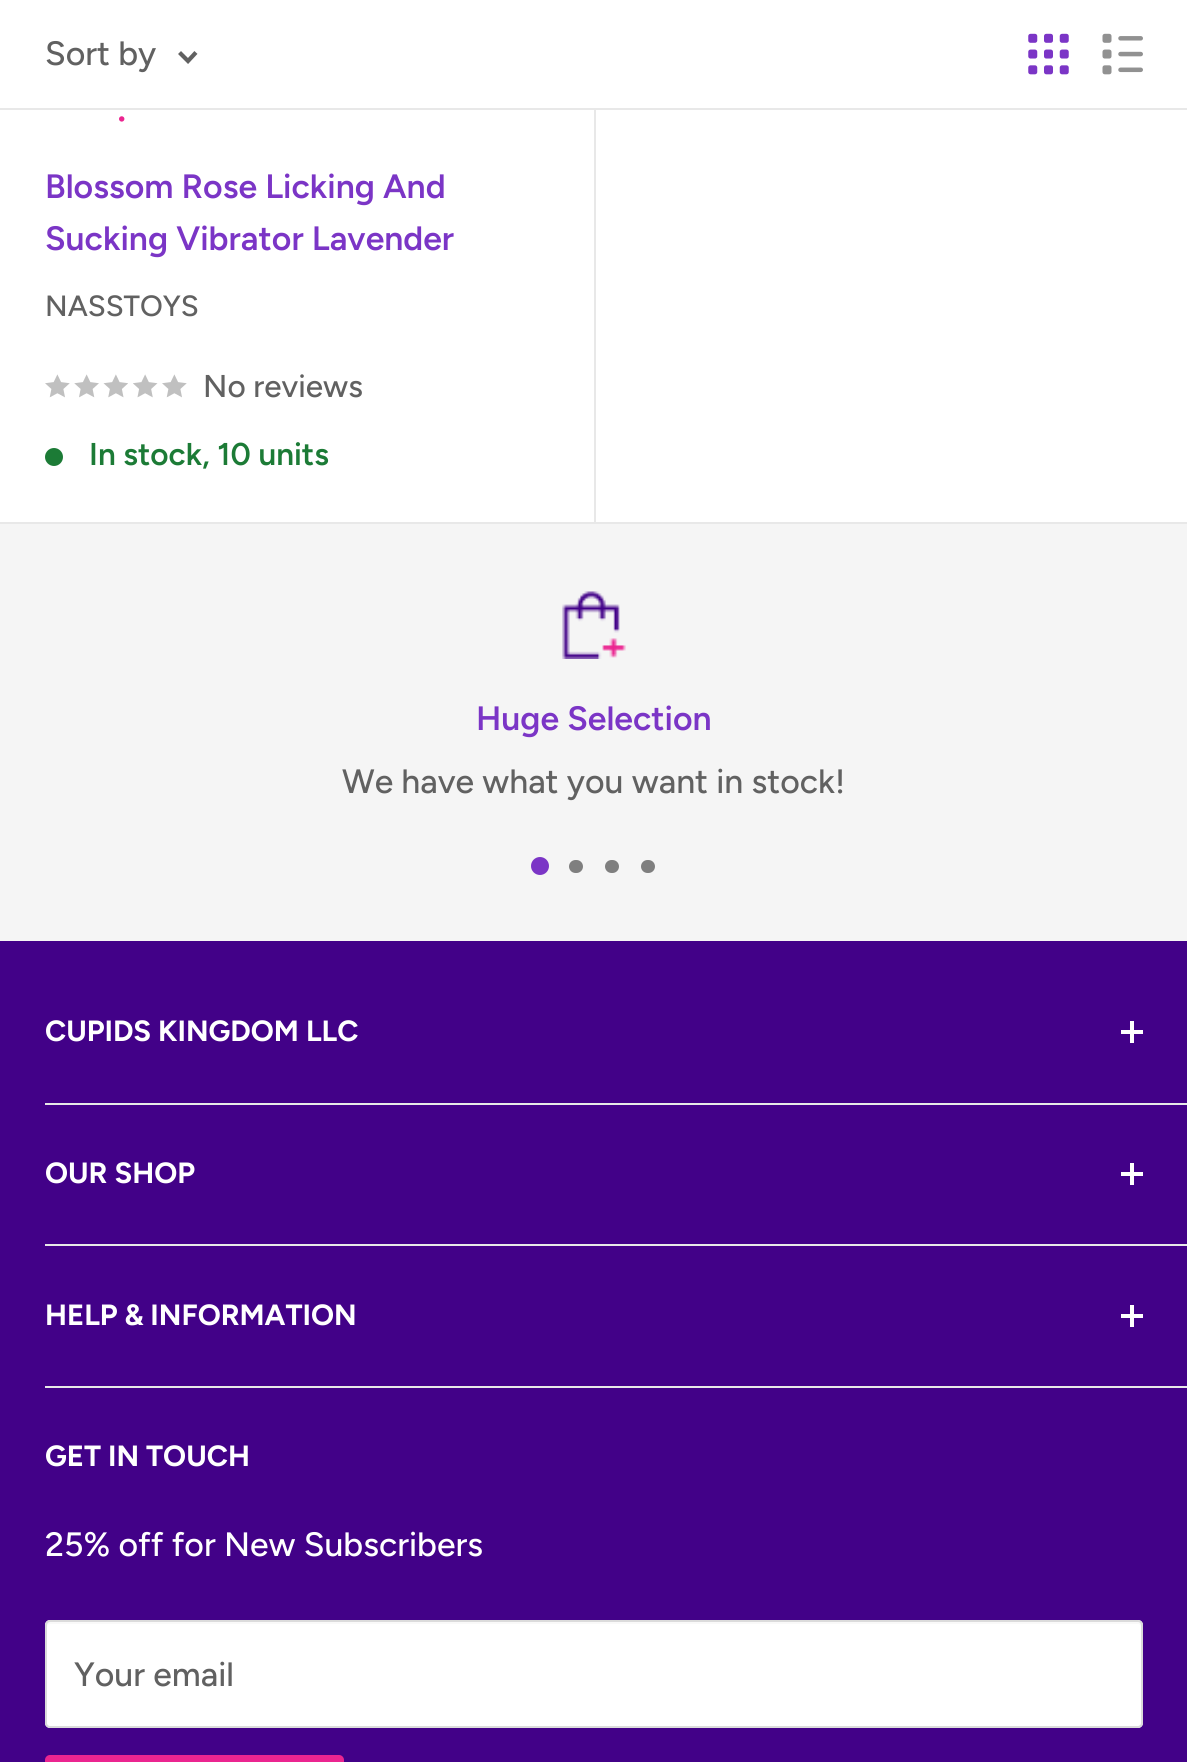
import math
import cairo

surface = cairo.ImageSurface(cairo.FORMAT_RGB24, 1187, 1762)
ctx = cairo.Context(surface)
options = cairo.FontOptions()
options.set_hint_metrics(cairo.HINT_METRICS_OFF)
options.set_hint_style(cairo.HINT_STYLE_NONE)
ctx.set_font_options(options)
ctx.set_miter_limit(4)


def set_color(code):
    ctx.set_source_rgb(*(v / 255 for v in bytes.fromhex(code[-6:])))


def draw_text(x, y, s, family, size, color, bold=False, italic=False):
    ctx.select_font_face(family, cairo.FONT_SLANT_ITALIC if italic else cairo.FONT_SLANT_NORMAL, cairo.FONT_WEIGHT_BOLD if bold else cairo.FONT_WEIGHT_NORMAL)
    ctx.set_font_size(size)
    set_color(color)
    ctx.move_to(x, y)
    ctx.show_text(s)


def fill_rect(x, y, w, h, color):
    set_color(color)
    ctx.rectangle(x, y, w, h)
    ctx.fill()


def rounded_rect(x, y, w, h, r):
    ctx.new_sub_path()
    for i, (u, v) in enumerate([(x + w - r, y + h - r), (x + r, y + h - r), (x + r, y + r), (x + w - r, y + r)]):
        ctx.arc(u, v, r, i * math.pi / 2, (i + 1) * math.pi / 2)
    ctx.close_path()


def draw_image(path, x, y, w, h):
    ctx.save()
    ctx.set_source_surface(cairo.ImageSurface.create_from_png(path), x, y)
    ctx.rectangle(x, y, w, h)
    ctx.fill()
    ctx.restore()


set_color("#f5f5f5")
ctx.paint()
fill_rect(0, 110, 1187, 412, "#ffffff")
fill_rect(0, 522, 1187, 2, "#e8e8e8")
fill_rect(0, 108, 1187, 2, "#e8e8e8")
fill_rect(0, 0, 1187, 108, "#ffffff")
draw_text(45, 65, "Sort by", "Figtree Medium", 33.75, "#616161")
ctx.new_path()
ctx.move_to(194.5, 54)
ctx.line_to(188, 61)
ctx.line_to(181, 54)
ctx.set_line_width(4.2)
ctx.set_line_cap(cairo.LINE_CAP_SQUARE)
ctx.stroke()
draw_image("assets/img1.png", 1028, 33, 41, 42)
draw_image("assets/img2.png", 1102, 33, 41, 42)
draw_text(117, 121, ".", "Figtree Medium", 43, "#eb2590")
draw_text(45, 198, "Blossom Rose Licking And", "Figtree SemiBold", 33.75, "#7b35c6")
draw_text(45, 250, "Sucking Vibrator Lavender", "Figtree SemiBold", 33.75, "#7b35c6")
draw_text(45, 316, "NASSTOYS", "Figtree Medium", 29.25, "#616161")
draw_image("assets/img3.png", 45, 374, 25, 24)
draw_image("assets/img4.png", 74, 374, 25, 24)
draw_image("assets/img5.png", 103, 374, 25, 24)
draw_image("assets/img6.png", 133, 374, 25, 24)
draw_image("assets/img3.png", 162, 374, 25, 24)
draw_text(203, 397, "No reviews", "Figtree Medium", 31.5, "#616161")
set_color("#1c7b36")
ctx.new_path()
ctx.arc(54, 457, 9, 0, 2 * math.pi)
ctx.fill()
draw_text(89, 465, "In stock, 10 units", "Figtree SemiBold", 31.5, "#1c7b36")
fill_rect(594, 110, 2, 412, "#e8e8e8")
draw_image("assets/img7.png", 562, 591, 64, 68)
draw_text(476, 730, "Huge Selection", "Figtree SemiBold", 33.75, "#7b35c6")
draw_text(342, 793, "We have what you want in stock!", "Figtree Medium", 33.75, "#616161")
set_color("#7b35c6")
ctx.new_path()
ctx.arc(540, 866, 9, 0, 2 * math.pi)
ctx.fill()
set_color("#7f7f7f")
rounded_rect(569, 860, 14, 13, 6.5)
ctx.fill()
rounded_rect(605, 860, 14, 13, 6.5)
ctx.fill()
rounded_rect(641, 860, 14, 13, 6.5)
ctx.fill()
fill_rect(0, 941, 1187, 821, "#420188")
fill_rect(45, 1103, 1142, 2, "#e8e8e8")
draw_text(45, 1041, "CUPIDS KINGDOM LLC", "Figtree", 29.25, "#ffffff", bold=True)
fill_rect(1130, 1021, 4, 22, "#ffffff")
fill_rect(1121, 1030, 22, 4, "#ffffff")
fill_rect(45, 1244, 1142, 2, "#e8e8e8")
draw_text(45, 1183, "OUR SHOP", "Figtree", 29.25, "#ffffff", bold=True)
fill_rect(1130, 1163, 4, 22, "#ffffff")
fill_rect(1121, 1172, 22, 4, "#ffffff")
fill_rect(45, 1386, 1142, 2, "#e8e8e8")
draw_text(45, 1325, "HELP & INFORMATION", "Figtree", 29.25, "#ffffff", bold=True)
fill_rect(1130, 1305, 4, 22, "#ffffff")
fill_rect(1121, 1314, 22, 4, "#ffffff")
draw_text(45, 1466, "GET IN TOUCH", "Figtree", 29.25, "#ffffff", bold=True)
draw_text(45, 1556, "25% off for New Subscribers", "Figtree Medium", 33.75, "#ffffff")
rounded_rect(45, 1620, 1098, 108, 5)
ctx.fill()
set_color("#f9f9f9")
ctx.new_path()
ctx.move_to(50, 1624)
ctx.line_to(1138, 1624)
ctx.curve_to(1140, 1624, 1141, 1626, 1141, 1627)
ctx.curve_to(1141, 1626, 1142, 1623, 1140, 1622)
ctx.line_to(49, 1622)
ctx.line_to(47, 1623)
ctx.line_to(47, 1627)
ctx.curve_to(47, 1626, 48, 1624, 50, 1624)
ctx.close_path()
ctx.fill()
rounded_rect(46, 1621, 1096, 106, 4)
set_color("#dbdbdb")
ctx.set_line_width(2)
ctx.set_line_cap(cairo.LINE_CAP_BUTT)
ctx.stroke()
draw_text(74, 1686, "Your email", "Figtree Medium", 33.75, "#616161")
set_color("#eb2590")
rounded_rect(45, 1755, 299, 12, 5)
ctx.fill()
surface.write_to_png("output.png")
